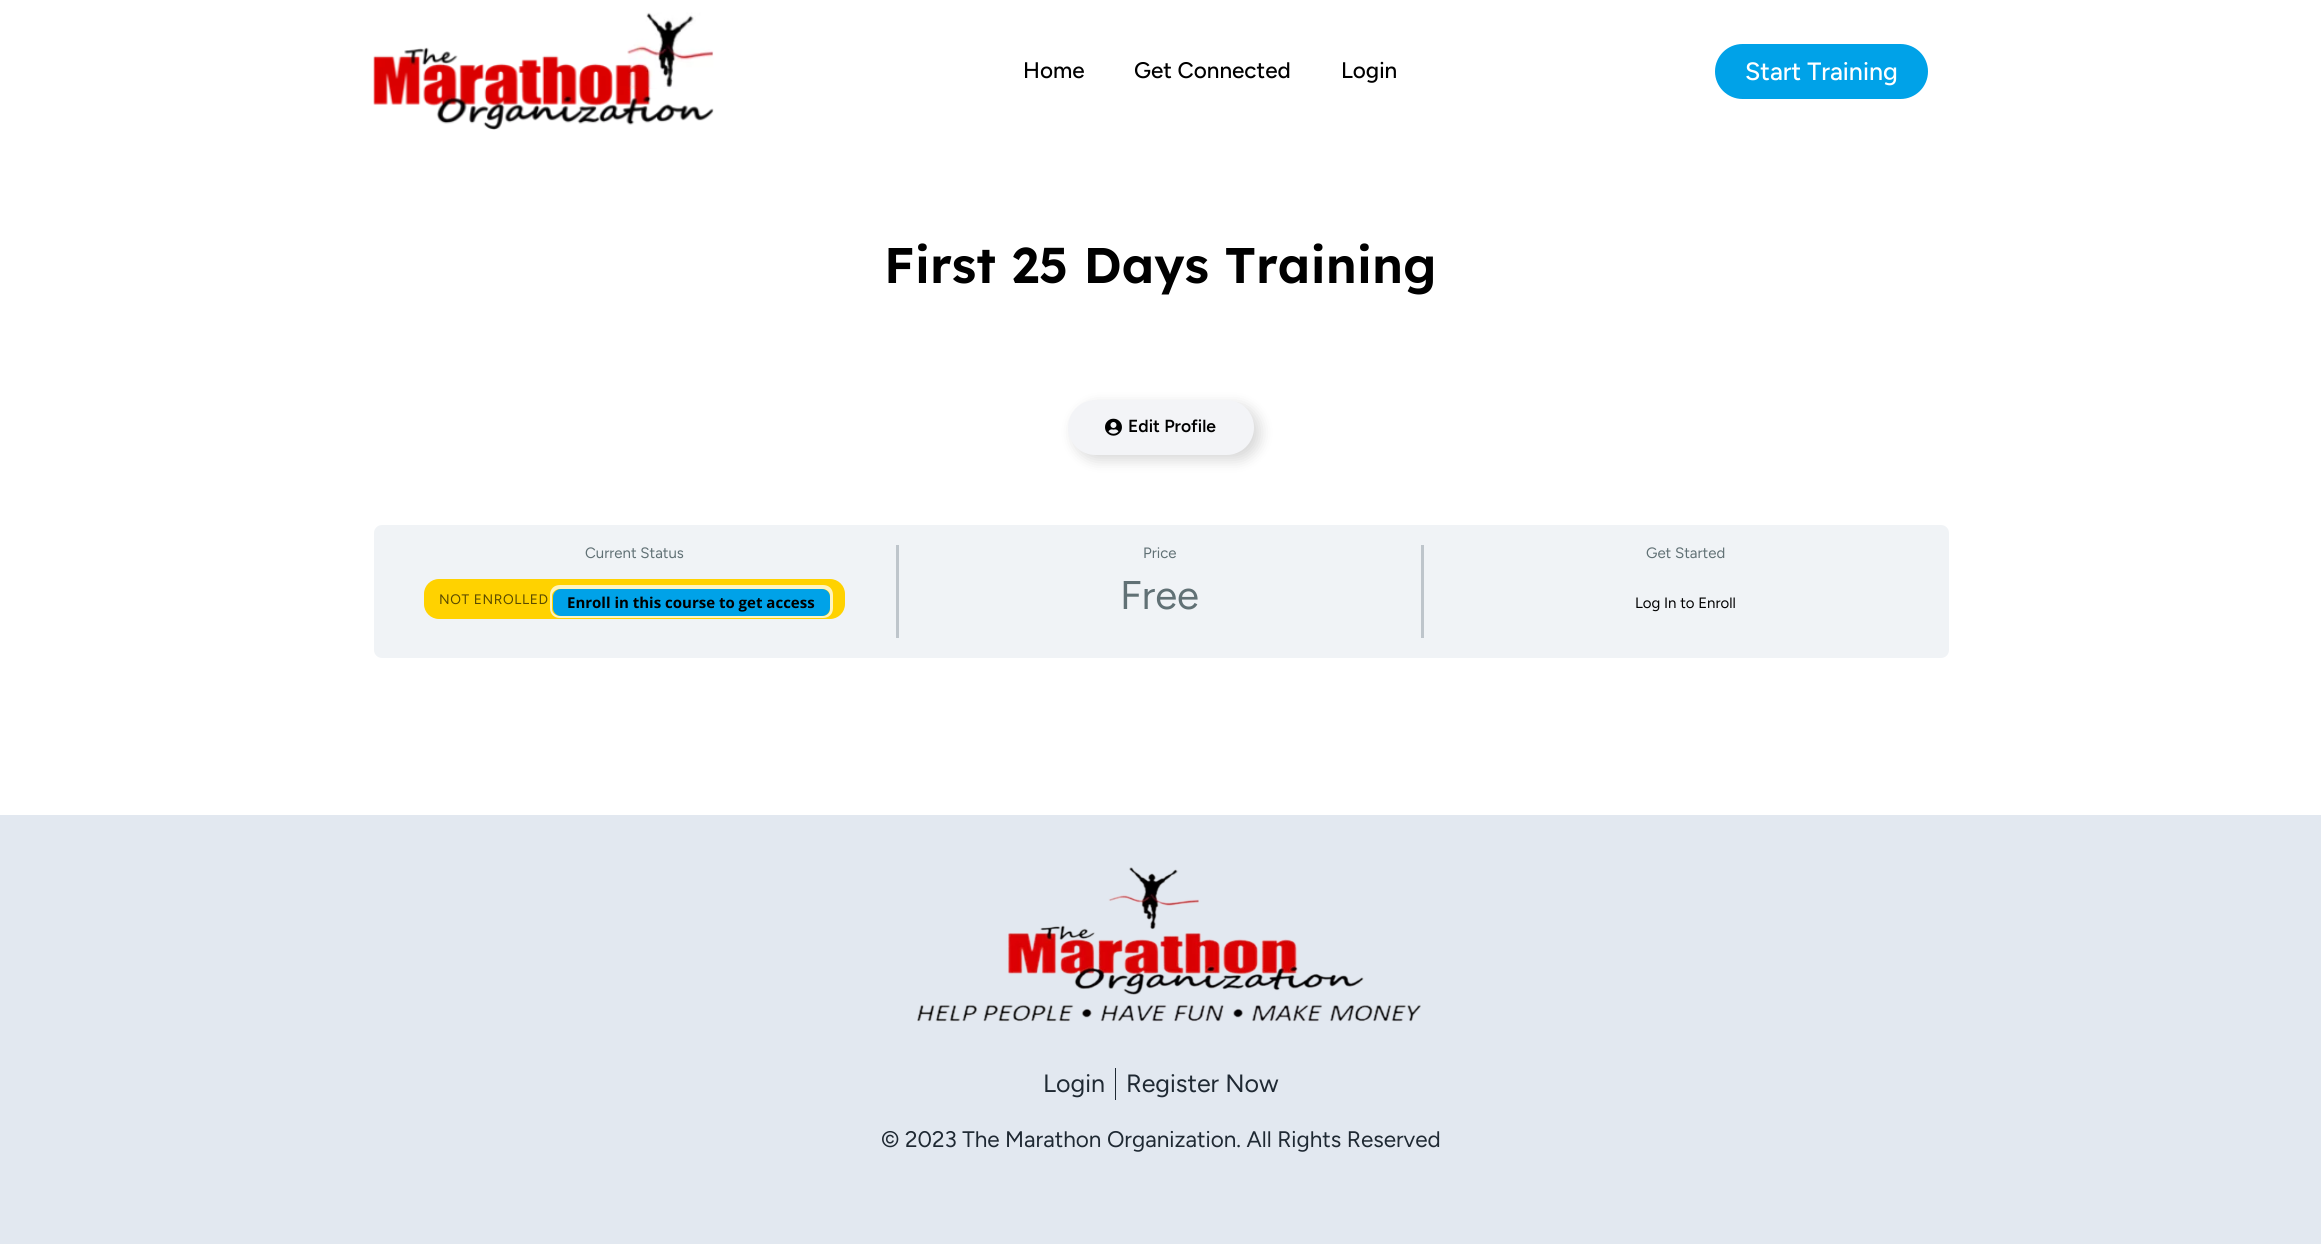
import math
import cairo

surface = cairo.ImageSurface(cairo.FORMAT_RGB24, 2321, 1244)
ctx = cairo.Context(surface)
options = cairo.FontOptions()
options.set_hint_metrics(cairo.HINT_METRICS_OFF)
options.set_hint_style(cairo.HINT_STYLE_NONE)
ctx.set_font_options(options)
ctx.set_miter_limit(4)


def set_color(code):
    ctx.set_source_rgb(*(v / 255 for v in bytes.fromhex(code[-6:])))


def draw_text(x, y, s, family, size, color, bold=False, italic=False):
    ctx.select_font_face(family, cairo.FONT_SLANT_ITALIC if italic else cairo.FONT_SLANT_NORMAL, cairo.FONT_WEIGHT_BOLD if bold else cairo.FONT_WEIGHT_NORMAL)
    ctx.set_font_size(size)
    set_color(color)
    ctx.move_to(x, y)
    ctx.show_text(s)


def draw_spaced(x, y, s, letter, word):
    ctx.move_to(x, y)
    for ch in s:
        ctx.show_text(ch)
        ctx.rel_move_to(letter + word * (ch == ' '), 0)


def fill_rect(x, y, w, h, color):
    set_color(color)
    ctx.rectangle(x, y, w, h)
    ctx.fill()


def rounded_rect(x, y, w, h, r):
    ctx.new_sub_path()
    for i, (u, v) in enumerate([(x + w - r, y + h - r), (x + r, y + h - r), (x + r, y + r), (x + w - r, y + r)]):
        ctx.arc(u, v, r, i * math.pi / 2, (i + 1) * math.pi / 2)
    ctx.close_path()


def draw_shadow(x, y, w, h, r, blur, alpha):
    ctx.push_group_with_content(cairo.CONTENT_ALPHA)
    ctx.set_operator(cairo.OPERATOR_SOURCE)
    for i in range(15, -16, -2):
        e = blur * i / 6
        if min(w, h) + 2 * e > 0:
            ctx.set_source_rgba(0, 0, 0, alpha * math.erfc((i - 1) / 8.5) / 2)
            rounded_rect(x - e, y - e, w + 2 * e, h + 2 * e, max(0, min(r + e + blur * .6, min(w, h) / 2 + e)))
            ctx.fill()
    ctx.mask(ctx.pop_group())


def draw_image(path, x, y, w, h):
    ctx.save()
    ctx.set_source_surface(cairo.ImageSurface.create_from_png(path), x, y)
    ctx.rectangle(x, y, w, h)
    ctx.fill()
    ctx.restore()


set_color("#ffffff")
ctx.paint()
draw_image("assets/img1.png", 373, 12, 341, 118)
draw_text(1023, 78, "Home", "Figtree Medium", 22.5, "#000000")
draw_text(1134, 78, "Get Connected", "Figtree Medium", 22.5, "#000000")
draw_text(1341, 78, "Login", "Figtree Medium", 22.5, "#000000")
set_color("#00a2e8")
rounded_rect(1715, 44, 213, 55, 27.5)
ctx.fill()
draw_text(1745, 80, "Start Training", "Figtree Medium", 25, "#ffffff")
draw_text(884, 283, "First 25 Days Training", "Lexend SemiBold", 50, "#000000")
set_color("#000000")
draw_shadow(1074, 405, 186, 55, 27.5, 7, 0.16)
set_color("#f3f4f7")
rounded_rect(1068, 400, 186, 55, 27.5)
ctx.fill()
draw_image("assets/img2.png", 1105, 418, 17, 18)
draw_text(1128, 432, "Edit Profile", "Figtree SemiBold", 17.5, "#000000")
set_color("#f0f3f6")
rounded_rect(374, 525, 1575, 133, 8)
ctx.fill()
fill_rect(896, 545, 3, 93, "#bec5cb")
draw_text(585, 558, "Current Status", "Figtree", 15, "#617175")
set_color("#ffd200")
rounded_rect(424, 579, 421, 40, 15)
ctx.fill()
ctx.set_font_size(13.75)
set_color("#594a00")
draw_spaced(439, 604, "NOT ENROLLED", 0.6, 0)
set_color("#fff4bf")
ctx.set_fill_rule(cairo.FILL_RULE_EVEN_ODD)
ctx.new_path()
ctx.move_to(560, 585)
ctx.curve_to(554, 585, 550, 589, 550, 595)
ctx.line_to(550, 608)
ctx.curve_to(550, 614, 554, 618, 560, 618)
ctx.line_to(823, 618)
ctx.curve_to(829, 618, 833, 614, 833, 608)
ctx.line_to(833, 595)
ctx.curve_to(833, 589, 829, 585, 823, 585)
ctx.close_path()
ctx.move_to(560, 589)
ctx.curve_to(556, 589, 552, 592, 552, 596)
ctx.line_to(552, 609)
ctx.curve_to(552, 613, 556, 616, 560, 616)
ctx.line_to(822, 616)
ctx.curve_to(827, 616, 830, 613, 830, 609)
ctx.line_to(830, 596)
ctx.curve_to(830, 592, 827, 589, 822, 589)
ctx.close_path()
ctx.fill()
set_color("#00a2e8")
rounded_rect(553, 589, 277, 27, 8)
ctx.fill()
draw_text(567, 608, "Enroll in this course to get access", "Open Sans", 15, "#000000", bold=True)
fill_rect(1421, 545, 3, 93, "#bec5cb")
draw_text(1143, 558, "Price", "Figtree", 15, "#617175")
draw_text(1120, 609, "Free", "Figtree", 40, "#617175")
draw_text(1646, 558, "Get Started", "Figtree", 15, "#617175")
draw_text(1635, 608, "Log In to Enroll", "Figtree", 15, "#000000")
fill_rect(0, 815, 2321, 429, "#e2e8f0")
draw_image("assets/img3.png", 917, 867, 504, 155)
draw_text(1043, 1092, "Login", "Figtree", 25, "#1f2933")
fill_rect(1115, 1068, 1, 32, "#1f2933")
draw_text(1126, 1092, "Register Now", "Figtree", 25, "#1f2933")
draw_text(881, 1147, "© 2023 The Marathon Organization. All Rights Reserved", "Figtree", 22.5, "#1f2933")
surface.write_to_png("output.png")
